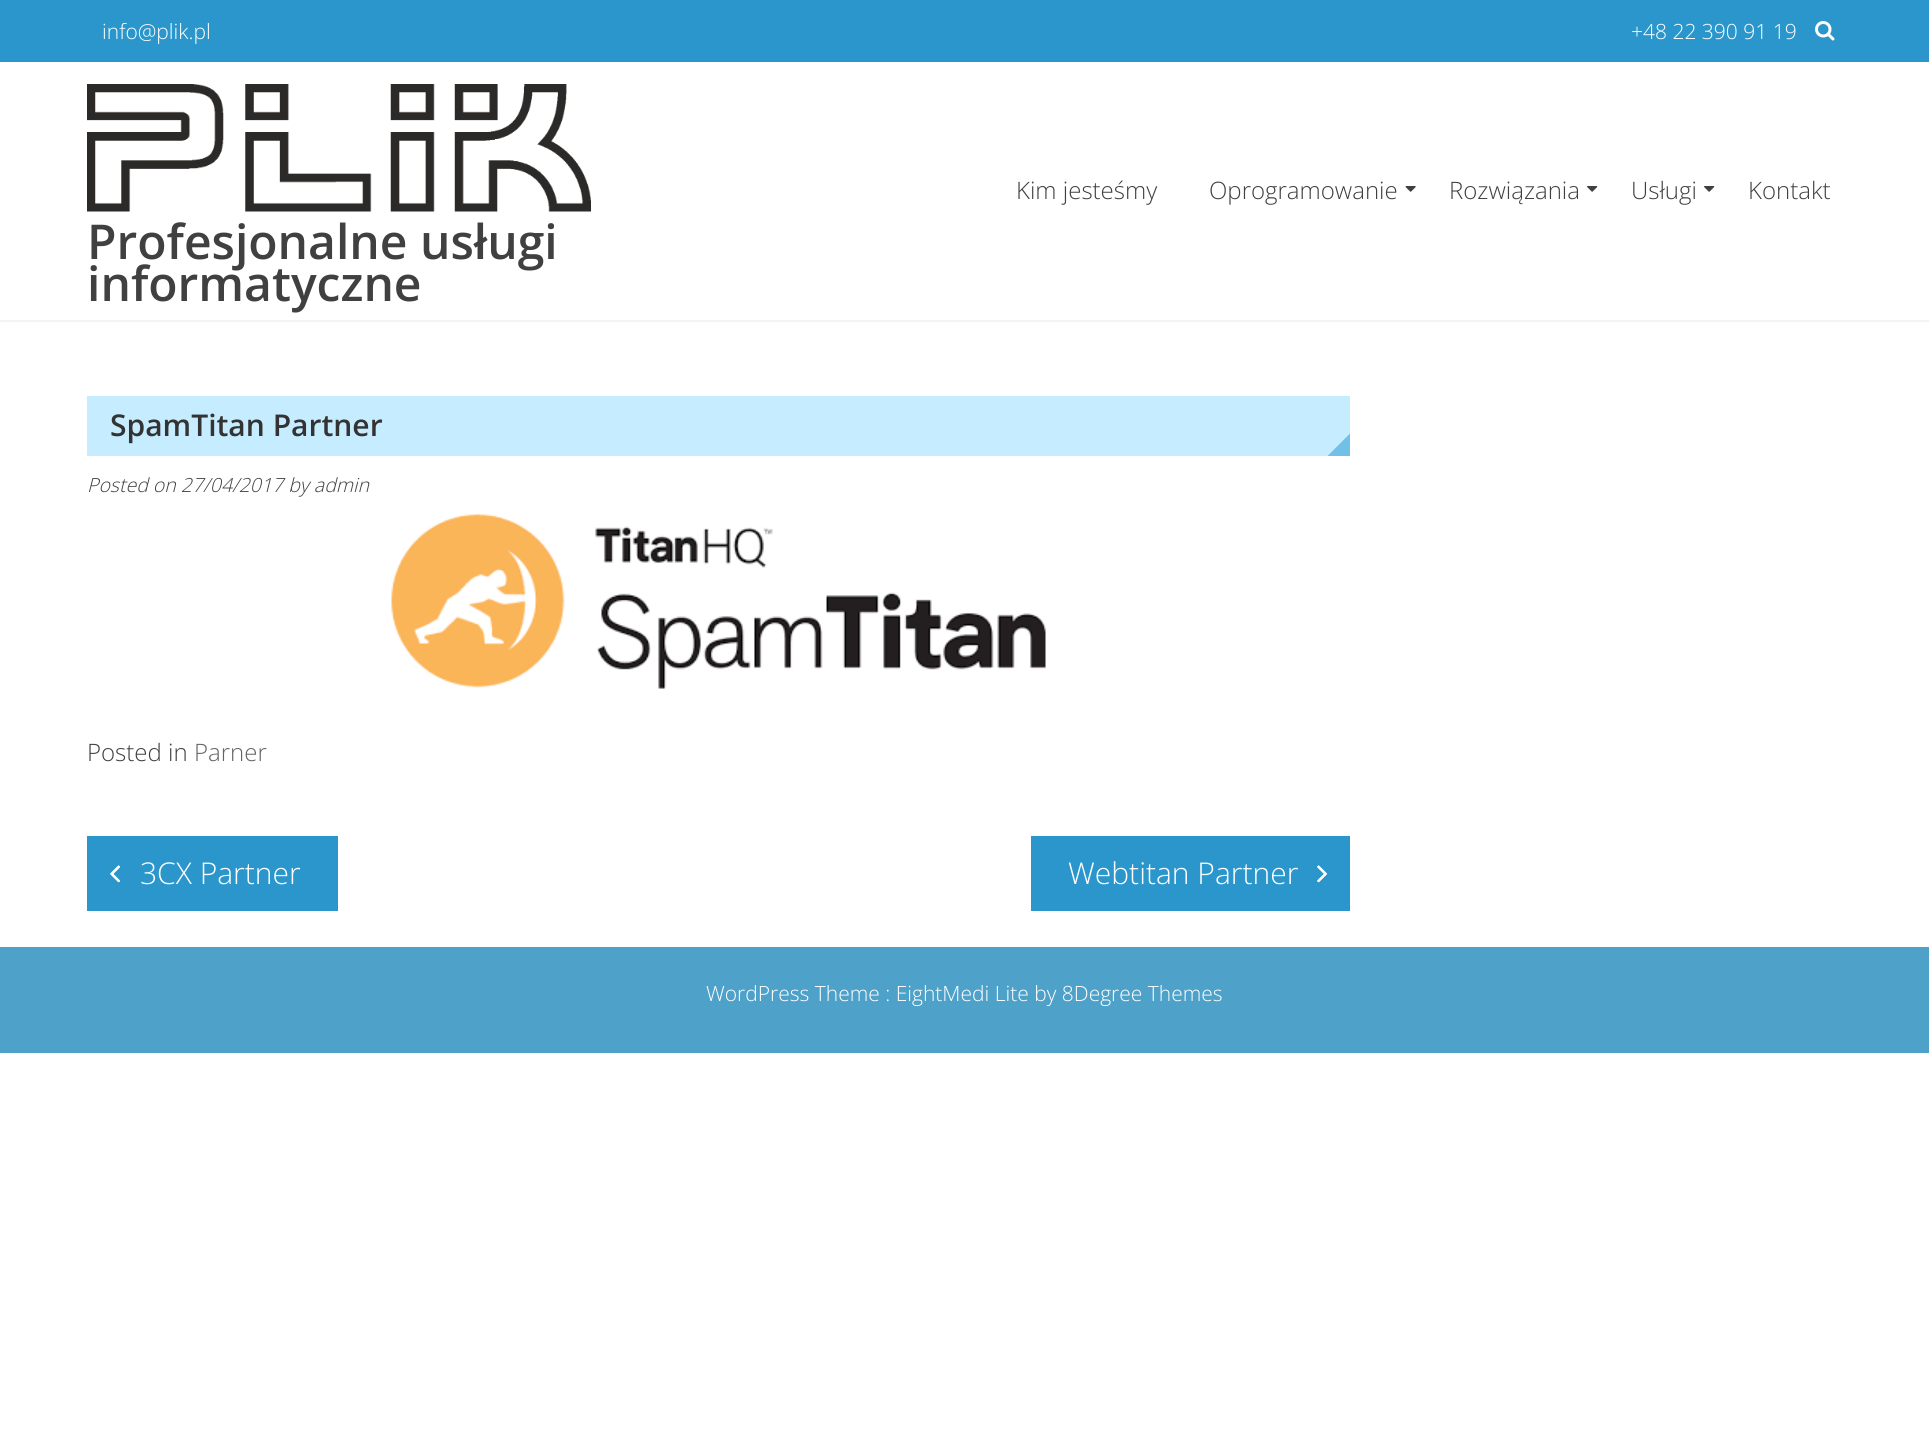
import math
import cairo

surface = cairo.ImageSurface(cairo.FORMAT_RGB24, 1929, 1435)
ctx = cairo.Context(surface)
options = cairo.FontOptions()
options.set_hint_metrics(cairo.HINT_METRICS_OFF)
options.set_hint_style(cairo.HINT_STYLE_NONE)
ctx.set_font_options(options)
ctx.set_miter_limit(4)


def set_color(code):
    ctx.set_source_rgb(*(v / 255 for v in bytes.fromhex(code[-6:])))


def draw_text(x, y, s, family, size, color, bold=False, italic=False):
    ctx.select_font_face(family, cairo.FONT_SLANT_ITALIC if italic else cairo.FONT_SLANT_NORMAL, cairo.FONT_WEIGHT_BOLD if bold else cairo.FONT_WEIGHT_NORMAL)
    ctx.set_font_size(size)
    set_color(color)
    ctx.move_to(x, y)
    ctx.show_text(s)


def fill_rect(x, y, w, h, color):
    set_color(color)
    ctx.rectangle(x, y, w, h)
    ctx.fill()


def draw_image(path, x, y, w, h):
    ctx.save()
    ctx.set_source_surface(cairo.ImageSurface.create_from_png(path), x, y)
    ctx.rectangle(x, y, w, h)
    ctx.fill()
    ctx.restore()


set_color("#ffffff")
ctx.paint()
fill_rect(0, 0, 1929, 62, "#2b96cc")
draw_text(102, 39, "info@plik.pl", "Open Sans Light", 21, "#ffffff")
draw_text(1631, 39, "+48 22 390 91 19", "Open Sans Light", 21, "#ffffff")
draw_image("assets/img1.png", 1815, 21, 20, 20)
fill_rect(0, 320, 1929, 2, "#f3f3f3")
draw_text(1016, 199, "Kim jesteśmy", "Open Sans Light", 24, "#404040")
draw_text(1209, 199, "Oprogramowanie", "Open Sans Light", 24, "#404040")
draw_image("assets/img2.png", 1405, 186, 11, 6)
draw_text(1449, 199, "Rozwiązania", "Open Sans Light", 24, "#404040")
draw_image("assets/img3.png", 1587, 186, 11, 6)
draw_text(1631, 199, "Usługi", "Open Sans Light", 24, "#404040")
draw_image("assets/img3.png", 1704, 186, 11, 6)
draw_text(1748, 199, "Kontakt", "Open Sans Light", 24, "#404040")
draw_image("assets/img4.png", 87, 84, 504, 128)
draw_text(87, 259, "Profesjonalne usługi", "Open Sans SemiBold", 48, "#404040")
draw_text(87, 301, "informatyczne", "Open Sans SemiBold", 48, "#404040")
fill_rect(87, 396, 1263, 60, "#c6ecff")
draw_text(110, 436, "SpamTitan Partner", "Open Sans SemiBold", 30, "#333333")
set_color("#70c0e8")
ctx.new_path()
ctx.move_to(1350, 456)
ctx.line_to(1327.5, 456)
ctx.line_to(1350, 433.5)
ctx.close_path()
ctx.fill()
draw_text(87, 492, "Posted on 27/04/2017 by admin", "Open Sans Light", 19.5, "#404040", italic=True)
draw_image("assets/img5.png", 391, 514, 655, 175)
draw_text(87, 761, "Posted in", "Open Sans Light", 24, "#404040")
draw_text(194, 761, "Parner", "Open Sans Light", 24, "#646464")
fill_rect(87, 836, 251, 75, "#2b96cc")
draw_image("assets/img6.png", 110, 865, 10, 18)
draw_text(140, 884, "3CX Partner", "Open Sans Light", 30, "#ffffff")
draw_image("assets/img7.png", 110, 865, 10, 18)
fill_rect(1031, 836, 319, 75, "#2b96cc")
draw_text(1068, 884, "Webtitan Partner", "Open Sans Light", 30, "#ffffff")
draw_image("assets/img8.png", 1317, 865, 10, 18)
draw_image("assets/img9.png", 1317, 865, 10, 18)
fill_rect(0, 947, 1929, 106, "#4ea1c9")
draw_text(706, 1001, "WordPress Theme : EightMedi Lite by 8Degree Themes", "Open Sans Light", 21, "#ffffff")
surface.write_to_png("output.png")
